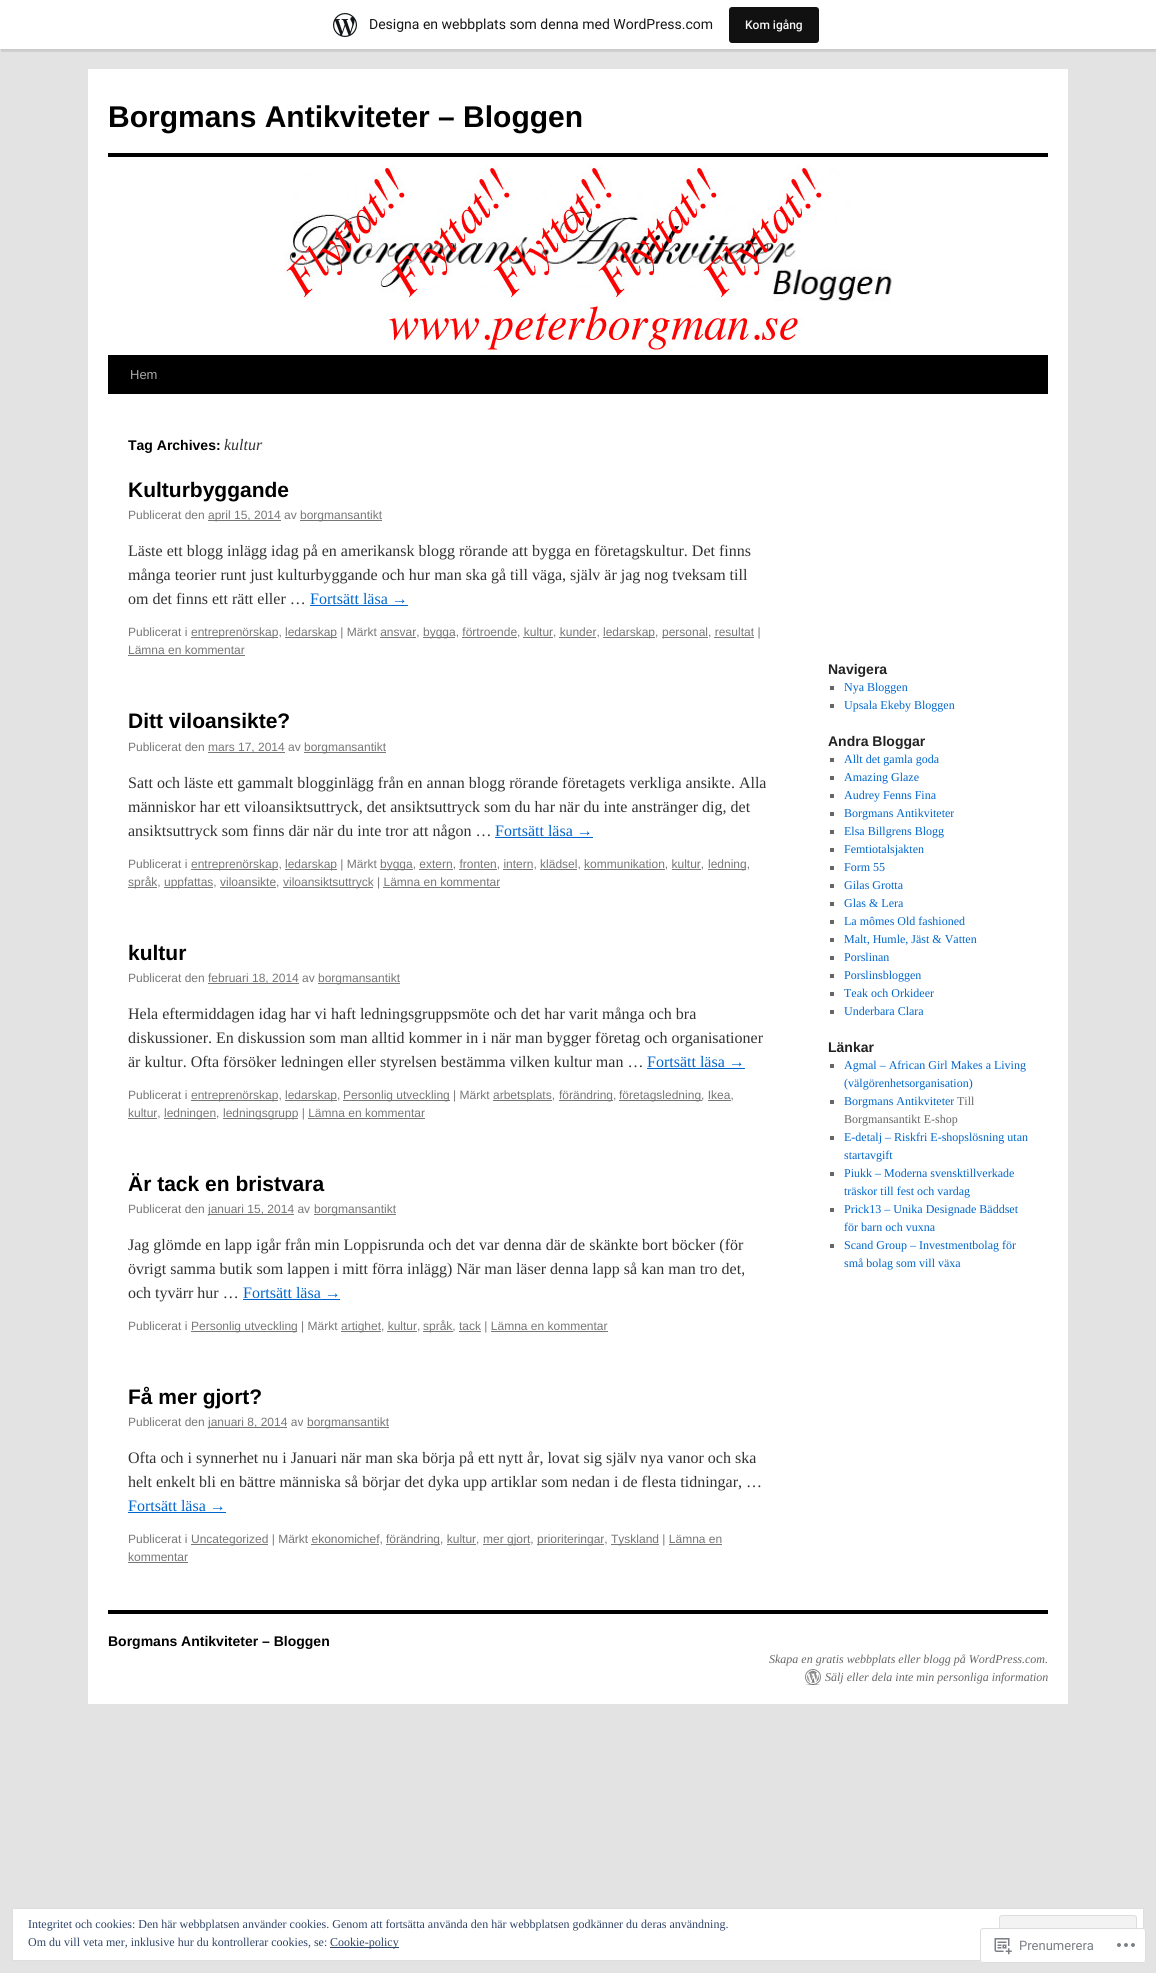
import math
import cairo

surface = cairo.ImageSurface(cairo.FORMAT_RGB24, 1156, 1973)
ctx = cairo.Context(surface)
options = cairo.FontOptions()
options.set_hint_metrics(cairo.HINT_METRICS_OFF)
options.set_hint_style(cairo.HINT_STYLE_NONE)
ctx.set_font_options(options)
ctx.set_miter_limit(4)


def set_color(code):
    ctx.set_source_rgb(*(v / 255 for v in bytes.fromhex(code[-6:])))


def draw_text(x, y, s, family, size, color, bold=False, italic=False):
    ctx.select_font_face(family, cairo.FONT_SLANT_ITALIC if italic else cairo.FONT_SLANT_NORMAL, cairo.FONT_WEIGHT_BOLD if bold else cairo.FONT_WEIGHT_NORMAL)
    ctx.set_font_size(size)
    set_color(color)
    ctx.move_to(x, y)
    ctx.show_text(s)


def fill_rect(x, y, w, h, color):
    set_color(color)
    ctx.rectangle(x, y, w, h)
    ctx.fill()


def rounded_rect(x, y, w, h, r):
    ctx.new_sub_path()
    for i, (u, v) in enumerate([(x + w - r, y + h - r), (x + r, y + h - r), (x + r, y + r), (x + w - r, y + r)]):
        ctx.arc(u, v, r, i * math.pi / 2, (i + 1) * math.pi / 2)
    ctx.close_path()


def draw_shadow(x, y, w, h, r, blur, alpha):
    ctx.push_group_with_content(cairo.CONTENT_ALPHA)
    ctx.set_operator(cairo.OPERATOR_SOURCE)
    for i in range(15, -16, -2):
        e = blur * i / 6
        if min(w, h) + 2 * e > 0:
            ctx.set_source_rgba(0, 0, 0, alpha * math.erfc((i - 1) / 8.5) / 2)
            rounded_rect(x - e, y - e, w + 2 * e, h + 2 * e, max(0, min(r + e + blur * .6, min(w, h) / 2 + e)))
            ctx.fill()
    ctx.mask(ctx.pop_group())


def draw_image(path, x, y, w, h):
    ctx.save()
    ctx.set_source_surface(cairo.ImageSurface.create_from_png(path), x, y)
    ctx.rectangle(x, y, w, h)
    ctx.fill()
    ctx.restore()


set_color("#e3e3e3")
ctx.paint()
set_color("#000000")
draw_shadow(0, 1, 1156, 49, 0, 1, 0.05)
ctx.set_source_rgba(0, 0, 0, 0.08)
ctx.new_path()
ctx.move_to(1, 49)
ctx.line_to(1, 52)
ctx.line_to(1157, 52)
ctx.line_to(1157, 3)
ctx.line_to(1156, 3)
ctx.line_to(1156, 49)
ctx.close_path()
ctx.fill()
fill_rect(0, 0, 1156, 49, "#ffffff")
draw_image("assets/img1.png", 333, 13, 24, 24)
draw_text(369, 29, "Designa en webbplats som denna med WordPress.com", "Roboto", 14, "#171717")
set_color("#111111")
rounded_rect(729, 7, 90, 36, 3)
ctx.fill()
draw_text(745, 29, "Kom igång", "Roboto Medium", 12, "#f6f7f7")
fill_rect(88, 69, 980, 1635, "#ffffff")
draw_text(108, 127, "Borgmans Antikviteter – Bloggen", "Liberation Sans", 30, "#000000", bold=True)
fill_rect(108, 153, 940, 4, "#000000")
fill_rect(108, 355, 940, 39, "#000000")
draw_image("assets/img2.png", 284, 165, 608, 190)
draw_text(130, 379, "Hem", "Liberation Sans", 13, "#aaaaaa")
draw_text(128, 450, "Tag Archives:", "Liberation Sans", 14, "#000000", bold=True)
draw_text(224, 450, "kultur", "Liberation Serif", 16, "#333333", italic=True)
draw_text(128, 497, "Kulturbyggande", "Liberation Sans", 21, "#000000", bold=True)
draw_text(128, 519, "Publicerat den", "Liberation Sans", 12, "#777777")
fill_rect(208, 520, 73, 1, "#777777")
draw_text(208, 519, "april 15, 2014 av", "Liberation Sans", 12, "#777777")
fill_rect(300, 520, 82, 1, "#777777")
draw_text(300, 519, "borgmansantikt", "Liberation Sans", 12, "#777777")
draw_text(128, 556, "Läste ett blogg inlägg idag på en amerikansk blogg rörande att bygga en företagskultur. Det finns", "Liberation Serif", 16, "#333333")
draw_text(128, 580, "många teorier runt just kulturbyggande och hur man ska gå till väga, själv är jag nog tveksam till", "Liberation Serif", 16, "#333333")
draw_text(128, 604, "om det finns ett rätt eller …", "Liberation Serif", 16, "#333333")
draw_text(310, 604, "Fortsätt läsa →", "Liberation Serif", 16, "#0066cc")
fill_rect(310, 605, 98, 1, "#0066cc")
draw_text(128, 636, "Publicerat i", "Liberation Sans", 12, "#777777")
fill_rect(191, 637, 87, 1, "#777777")
draw_text(191, 636, "entreprenörskap,", "Liberation Sans", 12, "#777777")
fill_rect(285, 637, 52, 1, "#777777")
draw_text(285, 636, "ledarskap | Märkt ansvar,", "Liberation Sans", 12, "#777777")
fill_rect(423, 637, 32, 1, "#777777")
draw_text(423, 636, "bygga, förtroende, kultur, kunder,", "Liberation Sans", 12, "#777777")
fill_rect(380, 637, 36, 1, "#777777")
fill_rect(462, 637, 55, 1, "#777777")
fill_rect(523, 637, 30, 1, "#777777")
fill_rect(559, 637, 37, 1, "#777777")
fill_rect(603, 637, 52, 1, "#777777")
draw_text(603, 636, "ledarskap,", "Liberation Sans", 12, "#777777")
fill_rect(662, 637, 46, 1, "#777777")
draw_text(662, 636, "personal, resultat |", "Liberation Sans", 12, "#777777")
fill_rect(714, 637, 40, 1, "#777777")
draw_text(128, 654, "Lämna en kommentar", "Liberation Sans", 12, "#777777")
fill_rect(128, 655, 117, 1, "#777777")
draw_text(128, 728, "Ditt viloansikte?", "Liberation Sans", 21, "#000000", bold=True)
draw_text(128, 751, "Publicerat den", "Liberation Sans", 12, "#777777")
fill_rect(208, 752, 77, 1, "#777777")
draw_text(208, 751, "mars 17, 2014 av", "Liberation Sans", 12, "#777777")
fill_rect(304, 752, 82, 1, "#777777")
draw_text(304, 751, "borgmansantikt", "Liberation Sans", 12, "#777777")
draw_text(128, 788, "Satt och läste ett gammalt blogginlägg från en annan blogg rörande företagets verkliga ansikte. Alla", "Liberation Serif", 16, "#333333")
draw_text(128, 812, "människor har ett viloansiktsuttryck, det ansiktsuttryck som du har när du inte anstränger dig, det", "Liberation Serif", 16, "#333333")
draw_text(128, 836, "ansiktsuttryck som finns där när du inte tror att någon …", "Liberation Serif", 16, "#333333")
draw_text(495, 836, "Fortsätt läsa →", "Liberation Serif", 16, "#0066cc")
fill_rect(495, 837, 98, 1, "#0066cc")
draw_text(128, 868, "Publicerat i", "Liberation Sans", 12, "#777777")
fill_rect(191, 869, 87, 1, "#777777")
draw_text(191, 868, "entreprenörskap,", "Liberation Sans", 12, "#777777")
fill_rect(285, 869, 52, 1, "#777777")
draw_text(285, 868, "ledarskap | Märkt", "Liberation Sans", 12, "#777777")
fill_rect(380, 869, 33, 1, "#777777")
draw_text(380, 868, "bygga, extern, fronten, intern, klädsel, kommunikation, kultur,", "Liberation Sans", 12, "#777777")
fill_rect(419, 869, 34, 1, "#777777")
fill_rect(459, 869, 38, 1, "#777777")
fill_rect(503, 869, 30, 1, "#777777")
fill_rect(540, 869, 37, 1, "#777777")
fill_rect(584, 869, 81, 1, "#777777")
fill_rect(672, 869, 29, 1, "#777777")
fill_rect(708, 869, 38, 1, "#777777")
draw_text(708, 868, "ledning,", "Liberation Sans", 12, "#777777")
fill_rect(128, 887, 29, 1, "#777777")
draw_text(128, 886, "språk,", "Liberation Sans", 12, "#777777")
fill_rect(164, 887, 49, 1, "#777777")
draw_text(164, 886, "uppfattas, viloansikte,", "Liberation Sans", 12, "#777777")
fill_rect(220, 887, 56, 1, "#777777")
fill_rect(283, 887, 90, 1, "#777777")
draw_text(283, 886, "viloansiktsuttryck | Lämna en kommentar", "Liberation Sans", 12, "#777777")
fill_rect(383, 887, 117, 1, "#777777")
draw_text(128, 960, "kultur", "Liberation Sans", 21, "#000000", bold=True)
draw_text(128, 982, "Publicerat den", "Liberation Sans", 12, "#777777")
fill_rect(208, 983, 91, 1, "#777777")
draw_text(208, 982, "februari 18, 2014 av", "Liberation Sans", 12, "#777777")
fill_rect(318, 983, 82, 1, "#777777")
draw_text(318, 982, "borgmansantikt", "Liberation Sans", 12, "#777777")
draw_text(128, 1019, "Hela eftermiddagen idag har vi haft ledningsgruppsmöte och det har varit många och bra", "Liberation Serif", 16, "#333333")
draw_text(128, 1043, "diskussioner. En diskussion som man alltid kommer in i när man bygger företag och organisationer", "Liberation Serif", 16, "#333333")
draw_text(128, 1067, "är kultur. Ofta försöker ledningen eller styrelsen bestämma vilken kultur man …", "Liberation Serif", 16, "#333333")
draw_text(647, 1067, "Fortsätt läsa →", "Liberation Serif", 16, "#0066cc")
fill_rect(647, 1068, 98, 1, "#0066cc")
draw_text(128, 1099, "Publicerat i", "Liberation Sans", 12, "#777777")
fill_rect(191, 1100, 87, 1, "#777777")
draw_text(191, 1099, "entreprenörskap,", "Liberation Sans", 12, "#777777")
fill_rect(285, 1100, 52, 1, "#777777")
draw_text(285, 1099, "ledarskap,", "Liberation Sans", 12, "#777777")
fill_rect(343, 1100, 107, 1, "#777777")
draw_text(343, 1099, "Personlig utveckling | Märkt", "Liberation Sans", 12, "#777777")
fill_rect(493, 1100, 59, 1, "#777777")
draw_text(493, 1099, "arbetsplats,", "Liberation Sans", 12, "#777777")
fill_rect(559, 1100, 54, 1, "#777777")
draw_text(559, 1099, "förändring,", "Liberation Sans", 12, "#777777")
fill_rect(619, 1100, 83, 1, "#777777")
draw_text(619, 1099, "företagsledning, Ikea,", "Liberation Sans", 12, "#777777")
fill_rect(708, 1100, 23, 1, "#777777")
fill_rect(128, 1118, 29, 1, "#777777")
draw_text(128, 1117, "kultur,", "Liberation Sans", 12, "#777777")
fill_rect(164, 1118, 52, 1, "#777777")
draw_text(164, 1117, "ledningen,", "Liberation Sans", 12, "#777777")
fill_rect(223, 1118, 75, 1, "#777777")
draw_text(223, 1117, "ledningsgrupp | Lämna en kommentar", "Liberation Sans", 12, "#777777")
fill_rect(308, 1118, 117, 1, "#777777")
draw_text(128, 1191, "Är tack en bristvara", "Liberation Sans", 21, "#000000", bold=True)
draw_text(128, 1213, "Publicerat den", "Liberation Sans", 12, "#777777")
fill_rect(208, 1214, 86, 1, "#777777")
draw_text(208, 1213, "januari 15, 2014 av", "Liberation Sans", 12, "#777777")
fill_rect(314, 1214, 82, 1, "#777777")
draw_text(314, 1213, "borgmansantikt", "Liberation Sans", 12, "#777777")
draw_text(128, 1250, "Jag glömde en lapp igår från min Loppisrunda och det var denna där de skänkte bort böcker (för", "Liberation Serif", 16, "#333333")
draw_text(128, 1274, "övrigt samma butik som lappen i mitt förra inlägg) När man läser denna lapp så kan man tro det,", "Liberation Serif", 16, "#333333")
draw_text(128, 1298, "och tyvärr hur …", "Liberation Serif", 16, "#333333")
draw_text(243, 1298, "Fortsätt läsa →", "Liberation Serif", 16, "#0066cc")
fill_rect(243, 1299, 97, 1, "#0066cc")
draw_text(128, 1330, "Publicerat i", "Liberation Sans", 12, "#777777")
fill_rect(191, 1331, 106, 1, "#777777")
draw_text(191, 1330, "Personlig utveckling | Märkt", "Liberation Sans", 12, "#777777")
fill_rect(341, 1331, 40, 1, "#777777")
draw_text(341, 1330, "artighet, kultur,", "Liberation Sans", 12, "#777777")
fill_rect(387, 1331, 30, 1, "#777777")
fill_rect(423, 1331, 30, 1, "#777777")
draw_text(423, 1330, "språk, tack | Lämna en kommentar", "Liberation Sans", 12, "#777777")
fill_rect(459, 1331, 22, 1, "#777777")
fill_rect(491, 1331, 117, 1, "#777777")
draw_text(128, 1404, "Få mer gjort?", "Liberation Sans", 21, "#000000", bold=True)
draw_text(128, 1426, "Publicerat den", "Liberation Sans", 12, "#777777")
fill_rect(208, 1427, 79, 1, "#777777")
draw_text(208, 1426, "januari 8, 2014 av", "Liberation Sans", 12, "#777777")
fill_rect(307, 1427, 82, 1, "#777777")
draw_text(307, 1426, "borgmansantikt", "Liberation Sans", 12, "#777777")
draw_text(128, 1463, "Ofta och i synnerhet nu i Januari när man ska börja på ett nytt år, lovat sig själv nya vanor och ska", "Liberation Serif", 16, "#333333")
draw_text(128, 1487, "helt enkelt bli en bättre människa så börjar det dyka upp artiklar som nedan i de flesta tidningar, …", "Liberation Serif", 16, "#333333")
draw_text(128, 1511, "Fortsätt läsa →", "Liberation Serif", 16, "#0066cc")
fill_rect(128, 1512, 98, 1, "#0066cc")
draw_text(128, 1543, "Publicerat i", "Liberation Sans", 12, "#777777")
fill_rect(191, 1544, 77, 1, "#777777")
draw_text(191, 1543, "Uncategorized | Märkt ekonomichef,", "Liberation Sans", 12, "#777777")
fill_rect(386, 1544, 54, 1, "#777777")
draw_text(386, 1543, "förändring, kultur,", "Liberation Sans", 12, "#777777")
fill_rect(311, 1544, 68, 1, "#777777")
fill_rect(447, 1544, 29, 1, "#777777")
fill_rect(483, 1544, 47, 1, "#777777")
draw_text(483, 1543, "mer gjort,", "Liberation Sans", 12, "#777777")
fill_rect(537, 1544, 67, 1, "#777777")
draw_text(537, 1543, "prioriteringar,", "Liberation Sans", 12, "#777777")
fill_rect(611, 1544, 48, 1, "#777777")
draw_text(611, 1543, "Tyskland | Lämna en", "Liberation Sans", 12, "#777777")
draw_text(128, 1561, "kommentar", "Liberation Sans", 12, "#777777")
fill_rect(669, 1544, 53, 1, "#777777")
fill_rect(128, 1562, 60, 1, "#777777")
draw_text(828, 674, "Navigera", "Liberation Sans", 14, "#222222", bold=True)
fill_rect(830, 686, 4, 4, "#666666")
draw_text(844, 691, "Nya Bloggen", "Liberation Serif", 12, "#0066cc")
fill_rect(830, 704, 4, 4, "#666666")
draw_text(844, 709, "Upsala Ekeby Bloggen", "Liberation Serif", 12, "#0066cc")
draw_text(828, 746, "Andra Bloggar", "Liberation Sans", 14, "#222222", bold=True)
fill_rect(830, 758, 4, 4, "#666666")
draw_text(844, 763, "Allt det gamla goda", "Liberation Serif", 12, "#0066cc")
fill_rect(830, 776, 4, 4, "#666666")
draw_text(844, 781, "Amazing Glaze", "Liberation Serif", 12, "#0066cc")
fill_rect(830, 794, 4, 4, "#666666")
draw_text(844, 799, "Audrey Fenns Fina", "Liberation Serif", 12, "#0066cc")
fill_rect(830, 812, 4, 4, "#666666")
draw_text(844, 817, "Borgmans Antikviteter", "Liberation Serif", 12, "#0066cc")
fill_rect(830, 830, 4, 4, "#666666")
draw_text(844, 835, "Elsa Billgrens Blogg", "Liberation Serif", 12, "#0066cc")
fill_rect(830, 848, 4, 4, "#666666")
draw_text(844, 853, "Femtiotalsjakten", "Liberation Serif", 12, "#0066cc")
fill_rect(830, 866, 4, 4, "#666666")
draw_text(844, 871, "Form 55", "Liberation Serif", 12, "#0066cc")
fill_rect(830, 884, 4, 4, "#666666")
draw_text(844, 889, "Gilas Grotta", "Liberation Serif", 12, "#0066cc")
fill_rect(830, 902, 4, 4, "#666666")
draw_text(844, 907, "Glas & Lera", "Liberation Serif", 12, "#0066cc")
fill_rect(830, 920, 4, 4, "#666666")
draw_text(844, 925, "La mômes Old fashioned", "Liberation Serif", 12, "#0066cc")
fill_rect(830, 938, 4, 4, "#666666")
draw_text(844, 943, "Malt, Humle, Jäst & Vatten", "Liberation Serif", 12, "#0066cc")
fill_rect(830, 956, 4, 4, "#666666")
draw_text(844, 961, "Porslinan", "Liberation Serif", 12, "#0066cc")
fill_rect(830, 974, 4, 4, "#666666")
draw_text(844, 979, "Porslinsbloggen", "Liberation Serif", 12, "#0066cc")
fill_rect(830, 992, 4, 4, "#666666")
draw_text(844, 997, "Teak och Orkideer", "Liberation Serif", 12, "#0066cc")
fill_rect(830, 1010, 4, 4, "#666666")
draw_text(844, 1015, "Underbara Clara", "Liberation Serif", 12, "#0066cc")
draw_text(828, 1052, "Länkar", "Liberation Sans", 14, "#222222", bold=True)
fill_rect(830, 1064, 4, 4, "#666666")
draw_text(844, 1069, "Agmal – African Girl Makes a Living", "Liberation Serif", 12, "#0066cc")
draw_text(844, 1087, "(välgörenhetsorganisation)", "Liberation Serif", 12, "#0066cc")
fill_rect(830, 1100, 4, 4, "#666666")
draw_text(844, 1105, "Borgmans Antikviteter", "Liberation Serif", 12, "#0066cc")
draw_text(957, 1105, "Till", "Liberation Serif", 12, "#666666")
draw_text(844, 1123, "Borgmansantikt E-shop", "Liberation Serif", 12, "#666666")
fill_rect(830, 1136, 4, 4, "#666666")
draw_text(844, 1141, "E-detalj – Riskfri E-shopslösning utan", "Liberation Serif", 12, "#0066cc")
draw_text(844, 1159, "startavgift", "Liberation Serif", 12, "#0066cc")
fill_rect(830, 1172, 4, 4, "#666666")
draw_text(844, 1177, "Piukk – Moderna svensktillverkade", "Liberation Serif", 12, "#0066cc")
draw_text(844, 1195, "träskor till fest och vardag", "Liberation Serif", 12, "#0066cc")
fill_rect(830, 1208, 4, 4, "#666666")
draw_text(844, 1213, "Prick13 – Unika Designade Bäddset", "Liberation Serif", 12, "#0066cc")
draw_text(844, 1231, "för barn och vuxna", "Liberation Serif", 12, "#0066cc")
fill_rect(830, 1244, 4, 4, "#666666")
draw_text(844, 1249, "Scand Group – Investmentbolag för", "Liberation Serif", 12, "#0066cc")
draw_text(844, 1267, "små bolag som vill växa", "Liberation Serif", 12, "#0066cc")
fill_rect(108, 1610, 940, 4, "#000000")
draw_text(108, 1646, "Borgmans Antikviteter – Bloggen", "Liberation Sans", 14, "#000000", bold=True)
draw_text(769, 1663, "Skapa en gratis webbplats eller blogg på WordPress.com.", "Liberation Serif", 12, "#666666", italic=True)
draw_image("assets/img3.png", 805, 1669, 16, 16)
draw_text(825, 1681, "Sälj eller dela inte min personliga information", "Liberation Serif", 12, "#666666", italic=True)
set_color("#ffffff")
ctx.rectangle(12.5, 1908.5, 1131, 52)
ctx.fill_preserve()
set_color("#dedede")
ctx.set_line_width(1)
ctx.stroke()
draw_text(28, 1928, "Integritet och cookies: Den här webbplatsen använder cookies. Genom att fortsätta använda den här webbplatsen godkänner du deras användning.", "Liberation Serif", 12, "#2e4467")
set_color("#f3f3f3")
rounded_rect(999.5, 1915.5, 137, 38, 2.5)
ctx.fill_preserve()
set_color("#dedede")
ctx.stroke()
draw_text(28, 1946, "Om du vill veta mer, inklusive hur du kontrollerar cookies, se:", "Liberation Serif", 12, "#2e4467")
fill_rect(330, 1947, 69, 1, "#2e4467")
draw_text(330, 1946, "Cookie-policy", "Liberation Serif", 12, "#2e4467")
ctx.set_source_rgba(1, 1, 1, 0.98)
rounded_rect(980, 1928, 166, 35, 3)
ctx.fill()
rounded_rect(980.5, 1928.5, 165, 34, 2.5)
ctx.set_source_rgba(0.863, 0.863, 0.871, 0.98)
ctx.stroke()
draw_image("assets/img4.png", 994, 1938, 18, 17)
draw_text(1019, 1950, "Prenumerera", "Roboto", 13, "#7a7e84")
draw_image("assets/img5.png", 1117, 1943, 18, 4)
surface.write_to_png("output.png")
